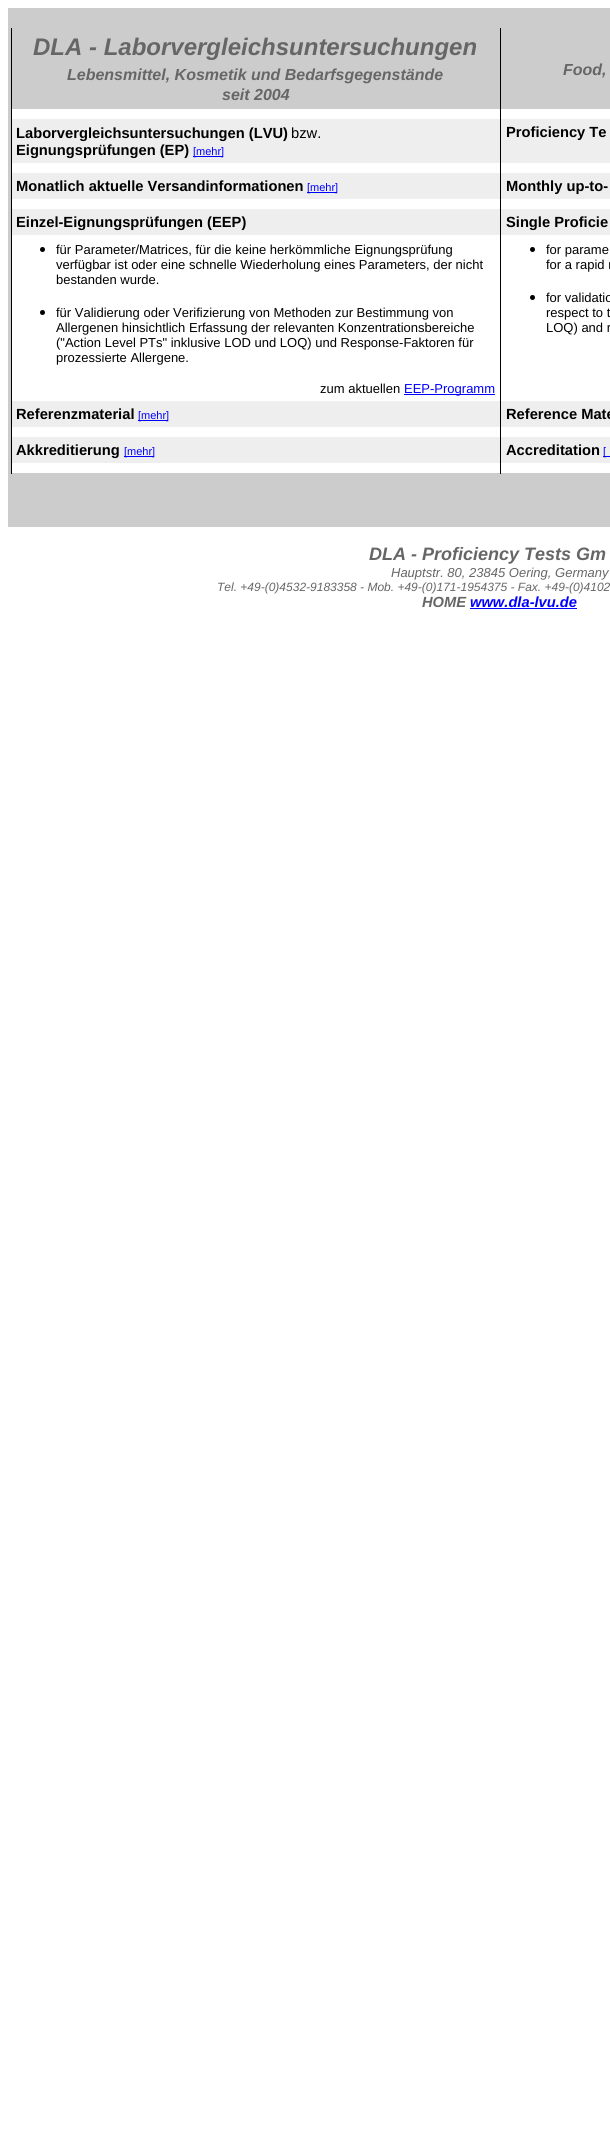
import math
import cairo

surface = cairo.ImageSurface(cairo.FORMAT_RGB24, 610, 2149)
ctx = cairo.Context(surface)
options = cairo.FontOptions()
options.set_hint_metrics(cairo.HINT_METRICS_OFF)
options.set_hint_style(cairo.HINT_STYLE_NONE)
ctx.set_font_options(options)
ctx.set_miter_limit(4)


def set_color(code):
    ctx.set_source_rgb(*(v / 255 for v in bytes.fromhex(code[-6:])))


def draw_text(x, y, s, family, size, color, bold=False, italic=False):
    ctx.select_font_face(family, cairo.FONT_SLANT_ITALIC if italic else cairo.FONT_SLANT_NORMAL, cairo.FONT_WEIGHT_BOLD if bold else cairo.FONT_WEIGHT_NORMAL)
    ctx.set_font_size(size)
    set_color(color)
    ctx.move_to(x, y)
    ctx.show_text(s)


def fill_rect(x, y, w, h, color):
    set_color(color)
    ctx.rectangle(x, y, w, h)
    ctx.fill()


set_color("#ffffff")
ctx.paint()
fill_rect(8, 8, 602, 519, "#cccccc")
fill_rect(12, 463, 488, 10, "#ffffff")
fill_rect(11, 28, 1, 446, "#000000")
fill_rect(501, 463, 109, 10, "#ffffff")
fill_rect(500, 28, 1, 446, "#000000")
draw_text(33, 55, "DLA - Laborvergleichsuntersuchungen", "Liberation Sans", 24, "#666666", bold=True, italic=True)
draw_text(67, 80, "Lebensmittel, Kosmetik und Bedarfsgegenstände", "Liberation Sans", 16, "#666666", bold=True, italic=True)
draw_text(222, 100, "seit 2004", "Liberation Sans", 16, "#666666", bold=True, italic=True)
draw_text(563, 75, "Food,", "Liberation Sans", 16, "#666666", bold=True, italic=True)
fill_rect(12, 109, 488, 10, "#ffffff")
fill_rect(501, 109, 109, 10, "#ffffff")
fill_rect(12, 119, 488, 44, "#eeeeee")
draw_text(16, 138, "Laborvergleichsuntersuchungen (LVU)", "Liberation Sans", 14.7, "#000000", bold=True)
draw_text(291, 138, "bzw.", "Liberation Sans", 14.7, "#000000")
draw_text(16, 155, "Eignungsprüfungen (EP)", "Liberation Sans", 14.7, "#000000", bold=True)
fill_rect(193, 156, 30, 1, "#0000ff")
draw_text(193, 155, "[mehr]", "Liberation Sans", 11, "#0000ff")
fill_rect(501, 119, 109, 44, "#eeeeee")
draw_text(506, 137, "Proficiency Te", "Liberation Sans", 14.7, "#000000", bold=True)
fill_rect(12, 163, 488, 10, "#ffffff")
fill_rect(501, 163, 109, 10, "#ffffff")
fill_rect(12, 173, 488, 26, "#eeeeee")
draw_text(16, 191, "Monatlich aktuelle Versandinformationen", "Liberation Sans", 14.7, "#000000", bold=True)
fill_rect(307, 192, 30, 1, "#0000ff")
draw_text(307, 191, "[mehr]", "Liberation Sans", 11, "#0000ff")
fill_rect(501, 173, 109, 26, "#eeeeee")
draw_text(506, 191, "Monthly up-to-", "Liberation Sans", 14.7, "#000000", bold=True)
fill_rect(12, 199, 488, 10, "#ffffff")
fill_rect(501, 199, 109, 10, "#ffffff")
fill_rect(12, 209, 488, 26, "#eeeeee")
draw_text(16, 227, "Einzel-Eignungsprüfungen (EEP)", "Liberation Sans", 14.7, "#000000", bold=True)
fill_rect(501, 209, 109, 26, "#eeeeee")
draw_text(506, 227, "Single Proficie", "Liberation Sans", 14.7, "#000000", bold=True)
fill_rect(12, 235, 488, 166, "#ffffff")
set_color("#000000")
ctx.new_path()
ctx.arc(42.5, 249.5, 2.5, 0, 2 * math.pi)
ctx.fill()
draw_text(56, 254, "für Parameter/Matrices, für die keine herkömmliche Eignungsprüfung", "Liberation Sans", 13, "#000000")
draw_text(56, 269, "verfügbar ist oder eine schnelle Wiederholung eines Parameters, der nicht", "Liberation Sans", 13, "#000000")
draw_text(56, 284, "bestanden wurde.", "Liberation Sans", 13, "#000000")
ctx.new_path()
ctx.arc(42.5, 312.5, 2.5, 0, 2 * math.pi)
ctx.fill()
draw_text(56, 317, "für Validierung oder Verifizierung von Methoden zur Bestimmung von", "Liberation Sans", 13, "#000000")
draw_text(56, 332, "Allergenen hinsichtlich Erfassung der relevanten Konzentrationsbereiche", "Liberation Sans", 13, "#000000")
draw_text(56, 347, "(\"Action Level PTs\" inklusive LOD und LOQ) und Response-Faktoren für", "Liberation Sans", 13, "#000000")
draw_text(56, 362, "prozessierte Allergene.", "Liberation Sans", 13, "#000000")
draw_text(320, 393, "zum aktuellen", "Liberation Sans", 13, "#000000")
fill_rect(404, 394, 91, 1, "#0000ff")
draw_text(404, 393, "EEP-Programm", "Liberation Sans", 13, "#0000ff")
fill_rect(501, 235, 109, 166, "#ffffff")
set_color("#000000")
ctx.new_path()
ctx.arc(532.5, 249.5, 2.5, 0, 2 * math.pi)
ctx.fill()
draw_text(546, 254, "for parame", "Liberation Sans", 13, "#000000")
draw_text(546, 269, "for a rapid r", "Liberation Sans", 13, "#000000")
ctx.new_path()
ctx.arc(532.5, 297.5, 2.5, 0, 2 * math.pi)
ctx.fill()
draw_text(546, 302, "for validatio", "Liberation Sans", 13, "#000000")
draw_text(546, 317, "respect to t", "Liberation Sans", 13, "#000000")
draw_text(546, 332, "LOQ) and r", "Liberation Sans", 13, "#000000")
fill_rect(12, 401, 488, 26, "#eeeeee")
draw_text(16, 419, "Referenzmaterial", "Liberation Sans", 14.7, "#000000", bold=True)
fill_rect(138, 420, 30, 1, "#0000ff")
draw_text(138, 419, "[mehr]", "Liberation Sans", 11, "#0000ff")
fill_rect(501, 401, 109, 26, "#eeeeee")
draw_text(506, 419, "Reference Mate", "Liberation Sans", 14.7, "#000000", bold=True)
fill_rect(12, 427, 488, 10, "#ffffff")
fill_rect(501, 427, 109, 10, "#ffffff")
fill_rect(12, 437, 488, 26, "#eeeeee")
draw_text(16, 455, "Akkreditierung", "Liberation Sans", 14.7, "#000000", bold=True)
fill_rect(124, 456, 30, 1, "#0000ff")
draw_text(124, 455, "[mehr]", "Liberation Sans", 11, "#0000ff")
fill_rect(501, 437, 109, 26, "#eeeeee")
draw_text(506, 455, "Accreditation", "Liberation Sans", 14.7, "#000000", bold=True)
fill_rect(603, 456, 7, 1, "#0000ff")
draw_text(603, 455, "[", "Liberation Sans", 11, "#0000ff")
draw_text(369, 560, "DLA - Proficiency Tests Gm", "Liberation Sans", 18, "#666666", bold=True, italic=True)
draw_text(391, 577, "Hauptstr. 80, 23845 Oering, Germany", "Liberation Sans", 13, "#666666", italic=True)
draw_text(217, 591, "Tel. +49-(0)4532-9183358 - Mob. +49-(0)171-1954375 - Fax. +49-(0)4102", "Liberation Sans", 12, "#666666", italic=True)
draw_text(422, 607, "HOME", "Liberation Sans", 14.7, "#666666", bold=True, italic=True)
draw_text(470, 607, "www.dla-lvu.de", "Liberation Sans", 14.7, "#0000ff", bold=True, italic=True)
fill_rect(470, 608, 107, 1, "#0000ff")
surface.write_to_png("output.png")
